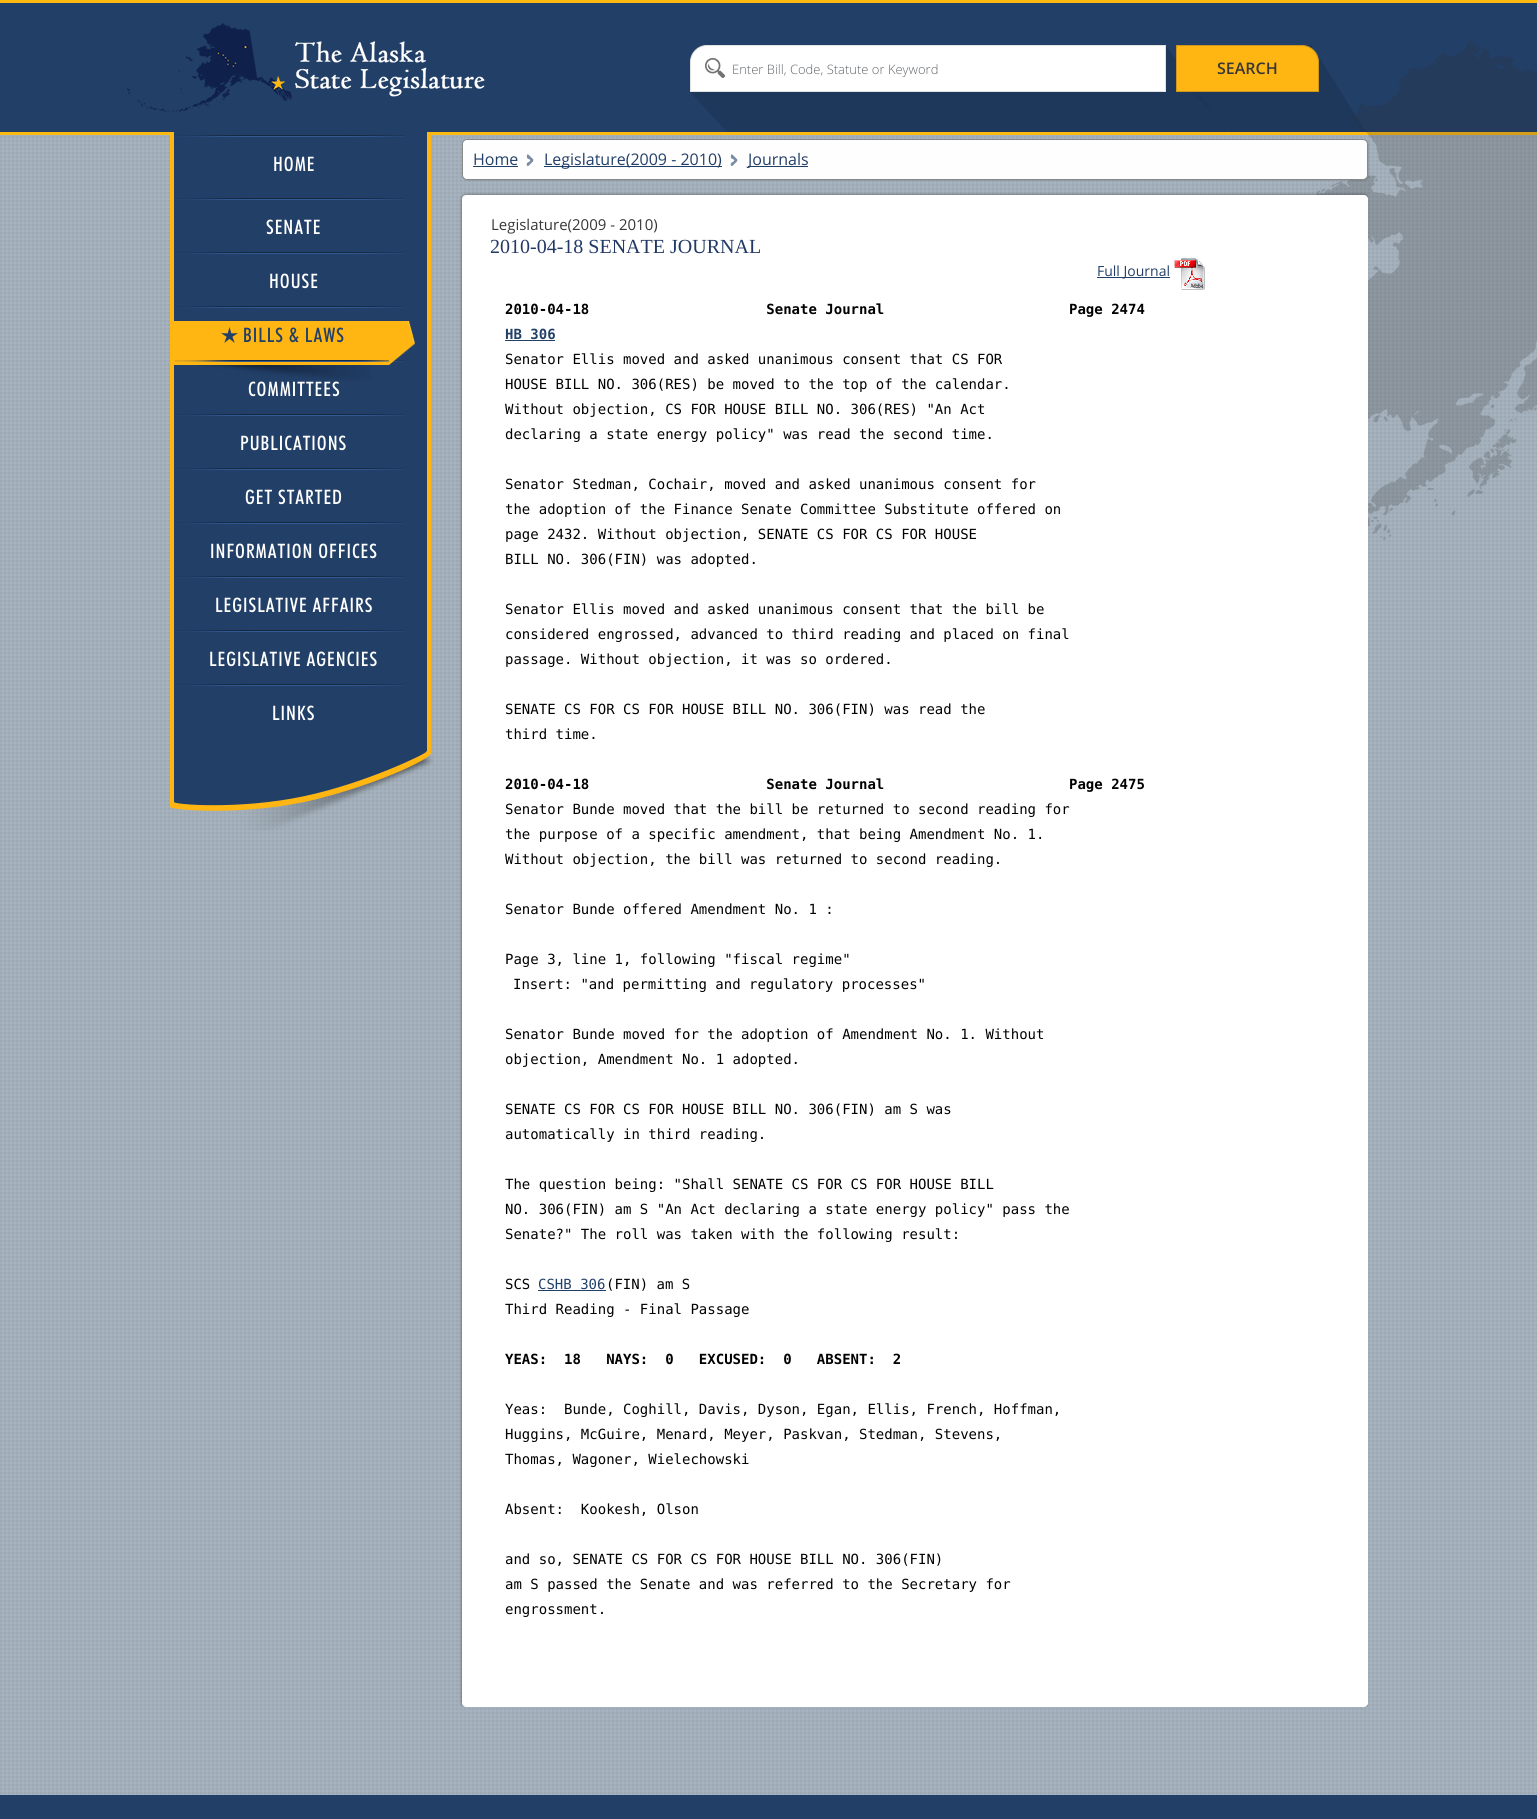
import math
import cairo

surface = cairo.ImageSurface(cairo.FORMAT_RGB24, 1537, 1819)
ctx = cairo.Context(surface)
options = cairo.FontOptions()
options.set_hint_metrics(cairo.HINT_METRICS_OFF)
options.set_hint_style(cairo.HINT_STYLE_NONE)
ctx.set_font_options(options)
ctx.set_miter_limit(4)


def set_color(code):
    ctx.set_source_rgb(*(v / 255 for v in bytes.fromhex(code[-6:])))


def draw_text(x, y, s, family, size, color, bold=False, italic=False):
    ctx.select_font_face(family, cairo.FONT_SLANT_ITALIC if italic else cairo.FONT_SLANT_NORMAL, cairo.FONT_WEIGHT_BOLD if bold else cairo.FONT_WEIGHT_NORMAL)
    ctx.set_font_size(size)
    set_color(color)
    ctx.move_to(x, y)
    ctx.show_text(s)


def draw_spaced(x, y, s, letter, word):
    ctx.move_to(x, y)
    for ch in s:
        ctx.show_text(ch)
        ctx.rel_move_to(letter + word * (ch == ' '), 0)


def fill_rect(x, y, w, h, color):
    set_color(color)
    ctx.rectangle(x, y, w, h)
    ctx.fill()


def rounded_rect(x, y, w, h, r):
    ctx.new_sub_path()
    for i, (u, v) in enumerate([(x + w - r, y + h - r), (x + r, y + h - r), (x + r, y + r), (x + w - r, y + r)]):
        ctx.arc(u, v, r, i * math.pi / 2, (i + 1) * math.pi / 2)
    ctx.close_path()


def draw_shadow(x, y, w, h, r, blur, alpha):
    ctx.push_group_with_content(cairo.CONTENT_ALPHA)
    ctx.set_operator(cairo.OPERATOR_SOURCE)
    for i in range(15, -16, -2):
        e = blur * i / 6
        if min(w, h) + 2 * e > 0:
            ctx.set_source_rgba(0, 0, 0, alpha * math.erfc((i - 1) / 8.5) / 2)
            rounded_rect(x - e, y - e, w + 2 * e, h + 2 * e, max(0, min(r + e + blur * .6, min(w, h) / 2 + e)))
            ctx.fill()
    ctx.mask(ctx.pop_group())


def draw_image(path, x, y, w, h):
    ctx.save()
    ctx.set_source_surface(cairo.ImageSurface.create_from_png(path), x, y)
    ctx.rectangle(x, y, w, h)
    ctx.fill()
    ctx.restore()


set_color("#ffffff")
ctx.paint()
draw_image("assets/img1.png", 0, 135, 1537, 1660)
fill_rect(0, 3, 1537, 129, "#223f68")
fill_rect(0, 0, 1537, 3, "#ffba11")
fill_rect(0, 132, 1537, 3, "#ffba11")
draw_image("assets/img2.png", 127, 23, 358, 89)
fill_rect(728, 45, 584, 87, "#1e385b")
draw_image("assets/img3.png", 690, 45, 38, 87)
set_color("#ffffff")
ctx.new_path()
ctx.move_to(707, 45.5)
ctx.line_to(1165.5, 45.5)
ctx.line_to(1165.5, 91.5)
ctx.line_to(690.5, 91.5)
ctx.line_to(690.5, 62)
ctx.curve_to(690.5, 53, 698, 45.5, 707, 45.5)
ctx.close_path()
ctx.fill_preserve()
set_color("#e2e2e2")
ctx.set_line_width(1)
ctx.stroke()
draw_image("assets/img4.png", 705, 58, 20, 20)
draw_text(732, 74, "Enter Bill, Code, Statute or Keyword", "Open Sans Light", 13, "#61666a")
draw_image("assets/img5.png", 1166, 45, 66, 87)
draw_image("assets/img6.png", 1312, 45, 54, 87)
draw_image("assets/img15.png", 1316, 40, 221, 500)
set_color("#ffb612")
ctx.new_path()
ctx.move_to(1176.5, 45.5)
ctx.line_to(1302, 45.5)
ctx.curve_to(1311, 45.5, 1318.5, 53, 1318.5, 62)
ctx.line_to(1318.5, 91.5)
ctx.line_to(1176.5, 91.5)
ctx.close_path()
ctx.fill_preserve()
set_color("#ce971b")
ctx.stroke()
draw_text(1217, 74, "SEARCH", "Open Sans SemiBold", 16, "#373737")
fill_rect(174, 132, 253, 619, "#223f68")
fill_rect(427, 132, 4, 621, "#ffb612")
fill_rect(170, 132, 4, 621, "#ffb612")
draw_image("assets/img7.png", 175, 135, 230, 2)
ctx.select_font_face("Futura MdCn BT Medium")
ctx.set_font_size(20)
set_color("#ffffff")
draw_spaced(273, 171, "HOME", 1, 0)
draw_image("assets/img7.png", 175, 198, 230, 2)
draw_spaced(266, 234, "SENATE", 1, 0)
draw_image("assets/img7.png", 175, 252, 230, 2)
draw_spaced(269, 288, "HOUSE", 1, 0)
draw_image("assets/img7.png", 175, 306, 230, 2)
fill_rect(174, 321, 215, 44, "#ffb612")
draw_image("assets/img8.png", 221, 327, 17, 16)
set_color("#223f68")
draw_spaced(243, 342, "BILLS & LAWS", 1, 0)
draw_image("assets/img11.png", 175, 360, 230, 2)
draw_image("assets/img9.png", 389, 321, 26, 44)
draw_image("assets/img10.png", 198, 365, 173, 16)
set_color("#ffffff")
draw_spaced(248, 396, "COMMITTEES", 1, 0)
draw_image("assets/img7.png", 175, 414, 230, 2)
draw_spaced(240, 450, "PUBLICATIONS", 1, 0)
draw_image("assets/img7.png", 175, 468, 230, 2)
draw_spaced(245, 504, "GET STARTED", 1, 0)
draw_image("assets/img7.png", 175, 522, 230, 2)
draw_spaced(210, 558, "INFORMATION OFFICES", 1, 0)
draw_image("assets/img7.png", 175, 576, 230, 2)
draw_spaced(215, 612, "LEGISLATIVE AFFAIRS", 1, 0)
draw_image("assets/img7.png", 175, 630, 230, 2)
draw_spaced(209, 666, "LEGISLATIVE AGENCIES", 1, 0)
draw_image("assets/img7.png", 175, 684, 230, 2)
draw_spaced(272, 720, "LINKS", 1, 0)
draw_image("assets/img12.png", 170, 751, 263, 80)
set_color("#000000")
draw_shadow(463, 140, 906, 41, 5, 0.5, 0.1)
set_color("#fefefe")
rounded_rect(462.5, 139.5, 905, 40, 4.5)
ctx.fill_preserve()
set_color("#888888")
ctx.stroke()
draw_text(473, 165, "Home", "Open Sans", 16, "#223f68")
fill_rect(473, 166, 45, 1, "#223f68")
draw_image("assets/img13.png", 526, 154, 8, 12)
fill_rect(544, 166, 178, 1, "#223f68")
draw_text(544, 165, "Legislature(2009 - 2010)", "Open Sans", 16, "#223f68")
draw_image("assets/img13.png", 730, 154, 8, 12)
fill_rect(748, 166, 60, 1, "#223f68")
draw_text(748, 165, "Journals", "Open Sans", 16, "#223f68")
ctx.save()
ctx.rectangle(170, 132, 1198, 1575)
ctx.clip()
set_color("#000000")
draw_shadow(462, 195, 906, 1512, 4, 1.5, 0.5)
ctx.restore()
set_color("#ffffff")
rounded_rect(462, 195, 906, 1512, 4)
ctx.fill()
draw_text(491, 230, "Legislature(2009 - 2010)", "Open Sans", 15, "#373737")
draw_text(490, 253, "2010-04-18 SENATE JOURNAL", "Liberation Serif", 20, "#233965")
fill_rect(1097, 277, 73, 1, "#223f68")
draw_text(1097, 276, "Full Journal", "Open Sans", 14, "#223f68")
draw_image("assets/img14.png", 1174, 258, 31, 32)
draw_text(505, 314, "2010-04-18                     Senate Journal", "DejaVu Sans Mono", 14, "#000000", bold=True)
draw_text(1069, 314, "Page 2474", "DejaVu Sans Mono", 14, "#000000", bold=True)
draw_text(505, 339, "HB 306", "DejaVu Sans Mono", 14, "#223f68", bold=True)
fill_rect(505, 340, 50, 1, "#223f68")
draw_text(505, 364, "Senator Ellis moved and asked unanimous consent that CS FOR", "DejaVu Sans Mono", 14, "#000000")
draw_text(505, 389, "HOUSE BILL NO. 306(RES) be moved to the top of the calendar.", "DejaVu Sans Mono", 14, "#000000")
draw_text(505, 414, "Without objection, CS FOR HOUSE BILL NO. 306(RES) \"An Act", "DejaVu Sans Mono", 14, "#000000")
draw_text(505, 439, "declaring a state energy policy\" was read the second time.", "DejaVu Sans Mono", 14, "#000000")
draw_text(505, 489, "Senator Stedman, Cochair, moved and asked unanimous consent for", "DejaVu Sans Mono", 14, "#000000")
draw_text(505, 514, "the adoption of the Finance Senate Committee Substitute offered on", "DejaVu Sans Mono", 14, "#000000")
draw_text(505, 539, "page 2432. Without objection, SENATE CS FOR CS FOR HOUSE", "DejaVu Sans Mono", 14, "#000000")
draw_text(505, 564, "BILL NO. 306(FIN) was adopted.", "DejaVu Sans Mono", 14, "#000000")
draw_text(505, 614, "Senator Ellis moved and asked unanimous consent that the bill be", "DejaVu Sans Mono", 14, "#000000")
draw_text(505, 639, "considered engrossed, advanced to third reading and placed on final", "DejaVu Sans Mono", 14, "#000000")
draw_text(505, 664, "passage. Without objection, it was so ordered.", "DejaVu Sans Mono", 14, "#000000")
draw_text(505, 714, "SENATE CS FOR CS FOR HOUSE BILL NO. 306(FIN) was read the", "DejaVu Sans Mono", 14, "#000000")
draw_text(505, 739, "third time.", "DejaVu Sans Mono", 14, "#000000")
draw_text(505, 789, "2010-04-18                     Senate Journal", "DejaVu Sans Mono", 14, "#000000", bold=True)
draw_text(1069, 789, "Page 2475", "DejaVu Sans Mono", 14, "#000000", bold=True)
draw_text(505, 814, "Senator Bunde moved that the bill be returned to second reading for", "DejaVu Sans Mono", 14, "#000000")
draw_text(505, 839, "the purpose of a specific amendment, that being Amendment No. 1.", "DejaVu Sans Mono", 14, "#000000")
draw_text(505, 864, "Without objection, the bill was returned to second reading.", "DejaVu Sans Mono", 14, "#000000")
draw_text(505, 914, "Senator Bunde offered Amendment No. 1 :", "DejaVu Sans Mono", 14, "#000000")
draw_text(505, 964, "Page 3, line 1, following \"fiscal regime\"", "DejaVu Sans Mono", 14, "#000000")
draw_text(513, 989, "Insert: \"and permitting and regulatory processes\"", "DejaVu Sans Mono", 14, "#000000")
draw_text(505, 1039, "Senator Bunde moved for the adoption of Amendment No. 1. Without", "DejaVu Sans Mono", 14, "#000000")
draw_text(505, 1064, "objection, Amendment No. 1 adopted.", "DejaVu Sans Mono", 14, "#000000")
draw_text(505, 1114, "SENATE CS FOR CS FOR HOUSE BILL NO. 306(FIN) am S was", "DejaVu Sans Mono", 14, "#000000")
draw_text(505, 1139, "automatically in third reading.", "DejaVu Sans Mono", 14, "#000000")
draw_text(505, 1189, "The question being: \"Shall SENATE CS FOR CS FOR HOUSE BILL", "DejaVu Sans Mono", 14, "#000000")
draw_text(505, 1214, "NO. 306(FIN) am S \"An Act declaring a state energy policy\" pass the", "DejaVu Sans Mono", 14, "#000000")
draw_text(505, 1239, "Senate?\" The roll was taken with the following result:", "DejaVu Sans Mono", 14, "#000000")
draw_text(505, 1289, "SCS", "DejaVu Sans Mono", 14, "#000000")
draw_text(538, 1289, "CSHB 306", "DejaVu Sans Mono", 14, "#223f68")
fill_rect(538, 1290, 68, 1, "#223f68")
draw_text(606, 1289, "(FIN) am S", "DejaVu Sans Mono", 14, "#000000")
draw_text(505, 1314, "Third Reading - Final Passage", "DejaVu Sans Mono", 14, "#000000")
draw_text(505, 1364, "YEAS:  18   NAYS:  0   EXCUSED:  0   ABSENT:  2", "DejaVu Sans Mono", 14, "#000000", bold=True)
draw_text(505, 1414, "Yeas:  Bunde, Coghill, Davis, Dyson, Egan, Ellis, French, Hoffman,", "DejaVu Sans Mono", 14, "#000000")
draw_text(505, 1439, "Huggins, McGuire, Menard, Meyer, Paskvan, Stedman, Stevens,", "DejaVu Sans Mono", 14, "#000000")
draw_text(505, 1464, "Thomas, Wagoner, Wielechowski", "DejaVu Sans Mono", 14, "#000000")
draw_text(505, 1514, "Absent:  Kookesh, Olson", "DejaVu Sans Mono", 14, "#000000")
draw_text(505, 1564, "and so, SENATE CS FOR CS FOR HOUSE BILL NO. 306(FIN)", "DejaVu Sans Mono", 14, "#000000")
draw_text(505, 1589, "am S passed the Senate and was referred to the Secretary for", "DejaVu Sans Mono", 14, "#000000")
draw_text(505, 1614, "engrossment.", "DejaVu Sans Mono", 14, "#000000")
fill_rect(0, 1795, 1537, 24, "#223f68")
surface.write_to_png("output.png")
